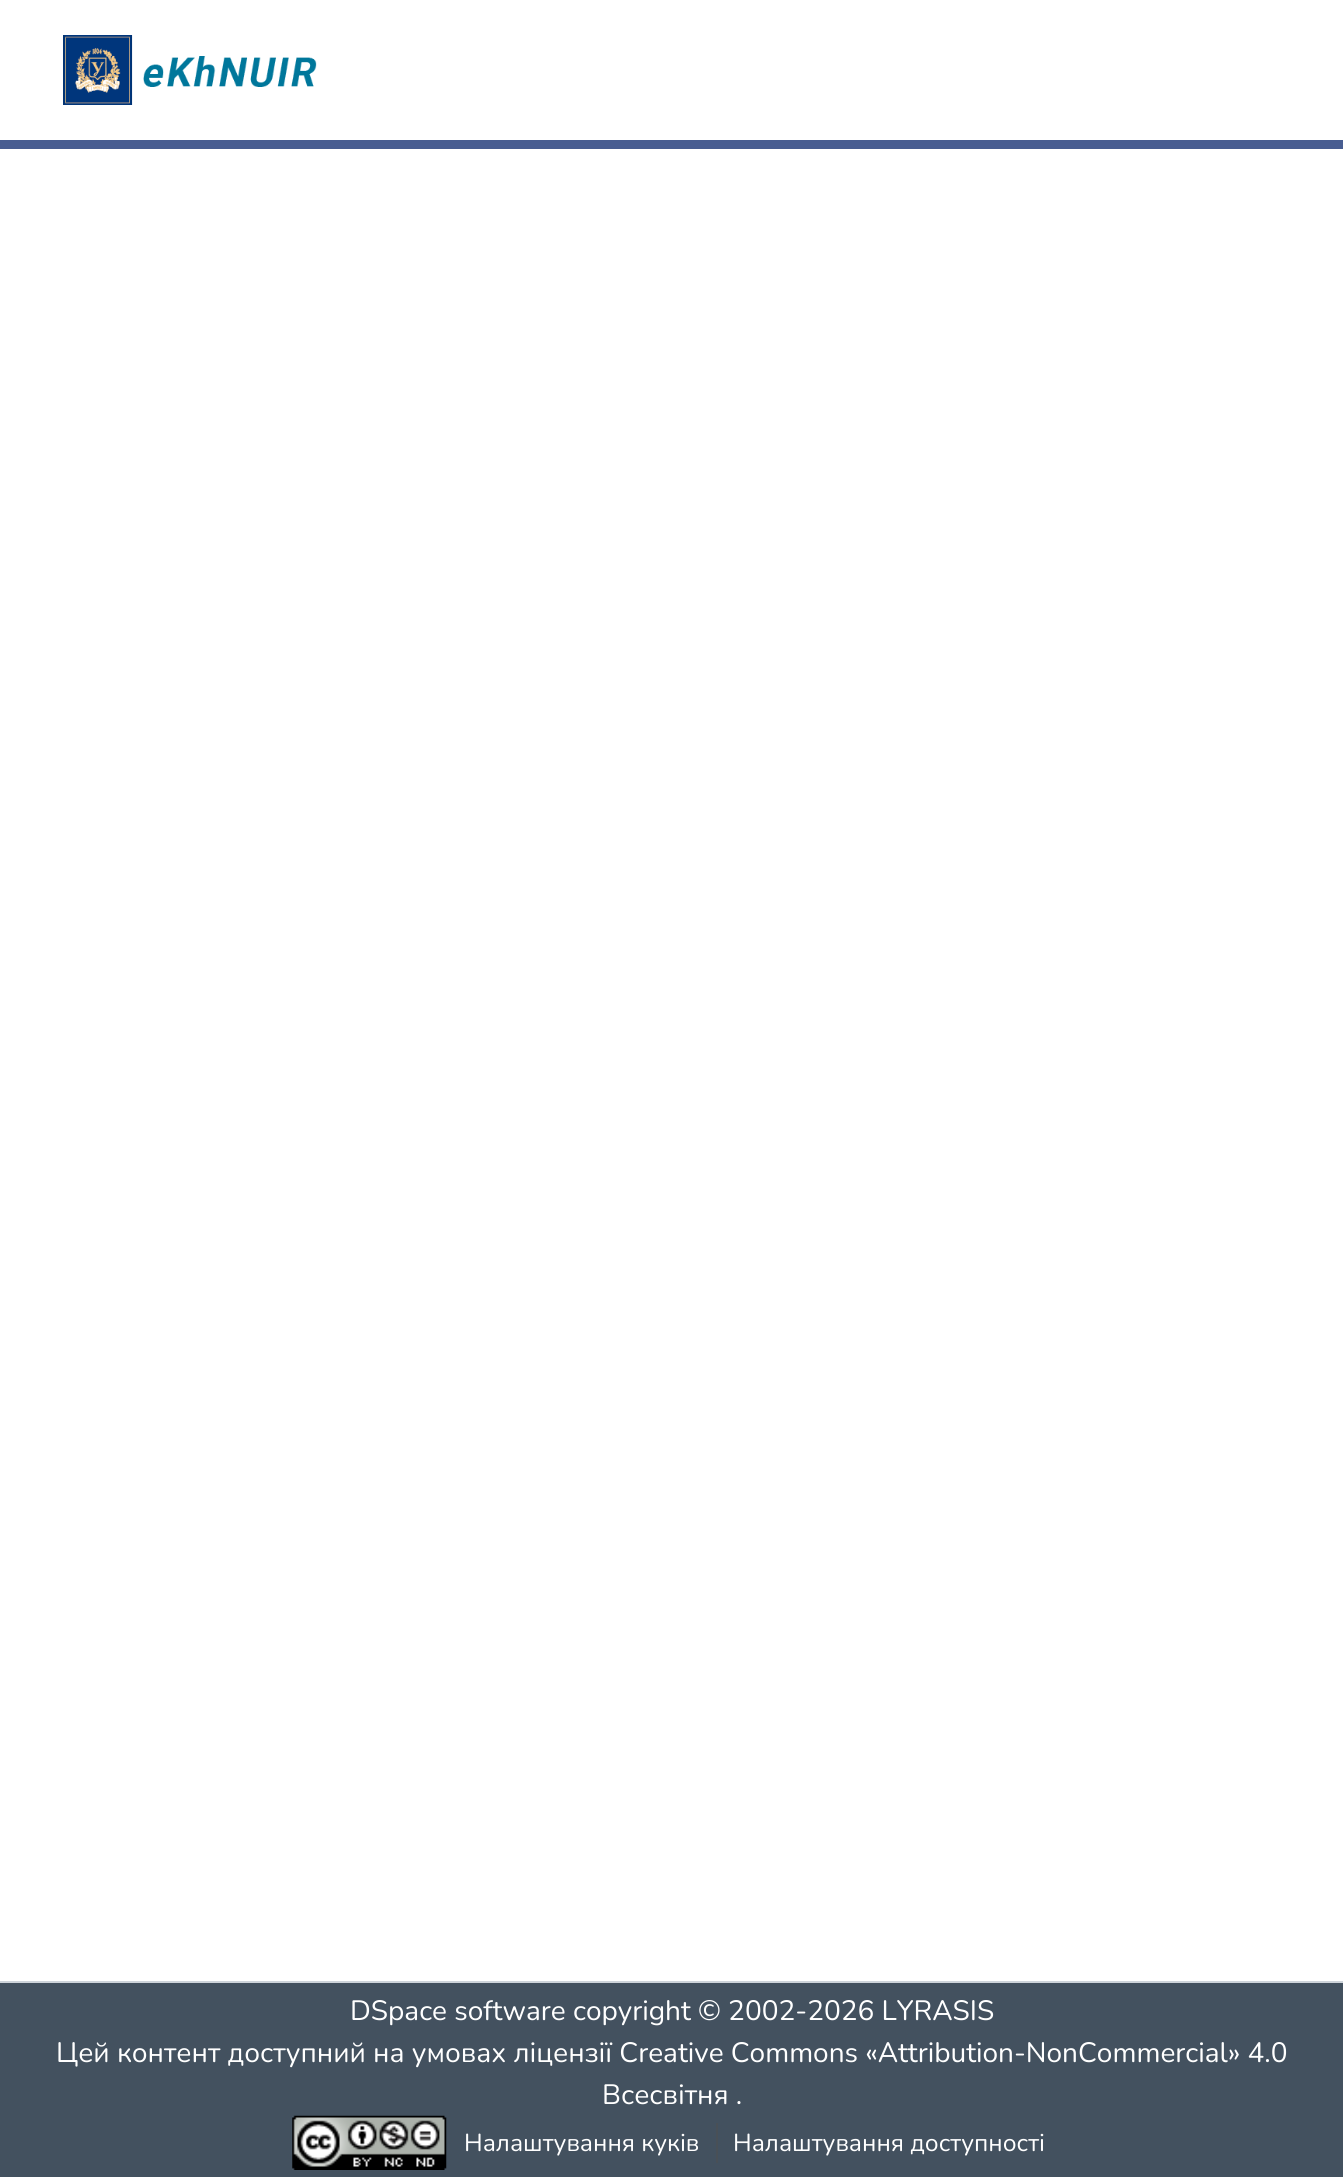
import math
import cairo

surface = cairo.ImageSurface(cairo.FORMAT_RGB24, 1343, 2177)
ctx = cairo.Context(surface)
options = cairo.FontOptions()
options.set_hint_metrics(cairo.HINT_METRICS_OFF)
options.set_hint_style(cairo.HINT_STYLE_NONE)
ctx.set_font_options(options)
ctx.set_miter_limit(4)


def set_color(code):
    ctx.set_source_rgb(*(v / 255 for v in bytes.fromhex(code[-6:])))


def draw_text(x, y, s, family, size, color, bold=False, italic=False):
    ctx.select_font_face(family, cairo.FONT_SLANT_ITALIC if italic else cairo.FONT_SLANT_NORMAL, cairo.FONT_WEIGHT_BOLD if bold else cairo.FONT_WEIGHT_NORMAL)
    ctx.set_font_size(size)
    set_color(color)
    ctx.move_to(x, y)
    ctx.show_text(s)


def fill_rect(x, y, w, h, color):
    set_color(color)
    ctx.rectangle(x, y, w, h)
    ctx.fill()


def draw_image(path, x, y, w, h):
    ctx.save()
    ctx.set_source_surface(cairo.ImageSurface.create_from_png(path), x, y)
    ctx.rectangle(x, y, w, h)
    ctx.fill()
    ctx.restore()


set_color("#ffffff")
ctx.paint()
fill_rect(0, 140, 1343, 9, "#485d91")
draw_image("assets/img1.png", 63, 35, 254, 70)
fill_rect(0, 1983, 1343, 194, "#43515f")
fill_rect(0, 1981, 1343, 2, "#ced4da")
draw_text(350, 2020, "DSpace software copyright © 2002-2026 LYRASIS", "Nunito", 28, "#ffffff")
draw_text(56, 2062, "Цей контент доступний на умовах ліцензії Creative Commons «Attribution-NonCommercial» 4.0", "Nunito", 28, "#ffffff")
draw_text(602, 2104, "Всесвітня .", "Nunito", 28, "#ffffff")
draw_image("assets/img2.png", 292, 2115, 155, 55)
draw_text(464, 2151, "Налаштування куків", "Nunito", 24.5, "#ffffff")
fill_rect(716, 2123, 2, 40, "#495057")
draw_text(733, 2151, "Налаштування доступності", "Nunito", 24.5, "#ffffff")
surface.write_to_png("output.png")
